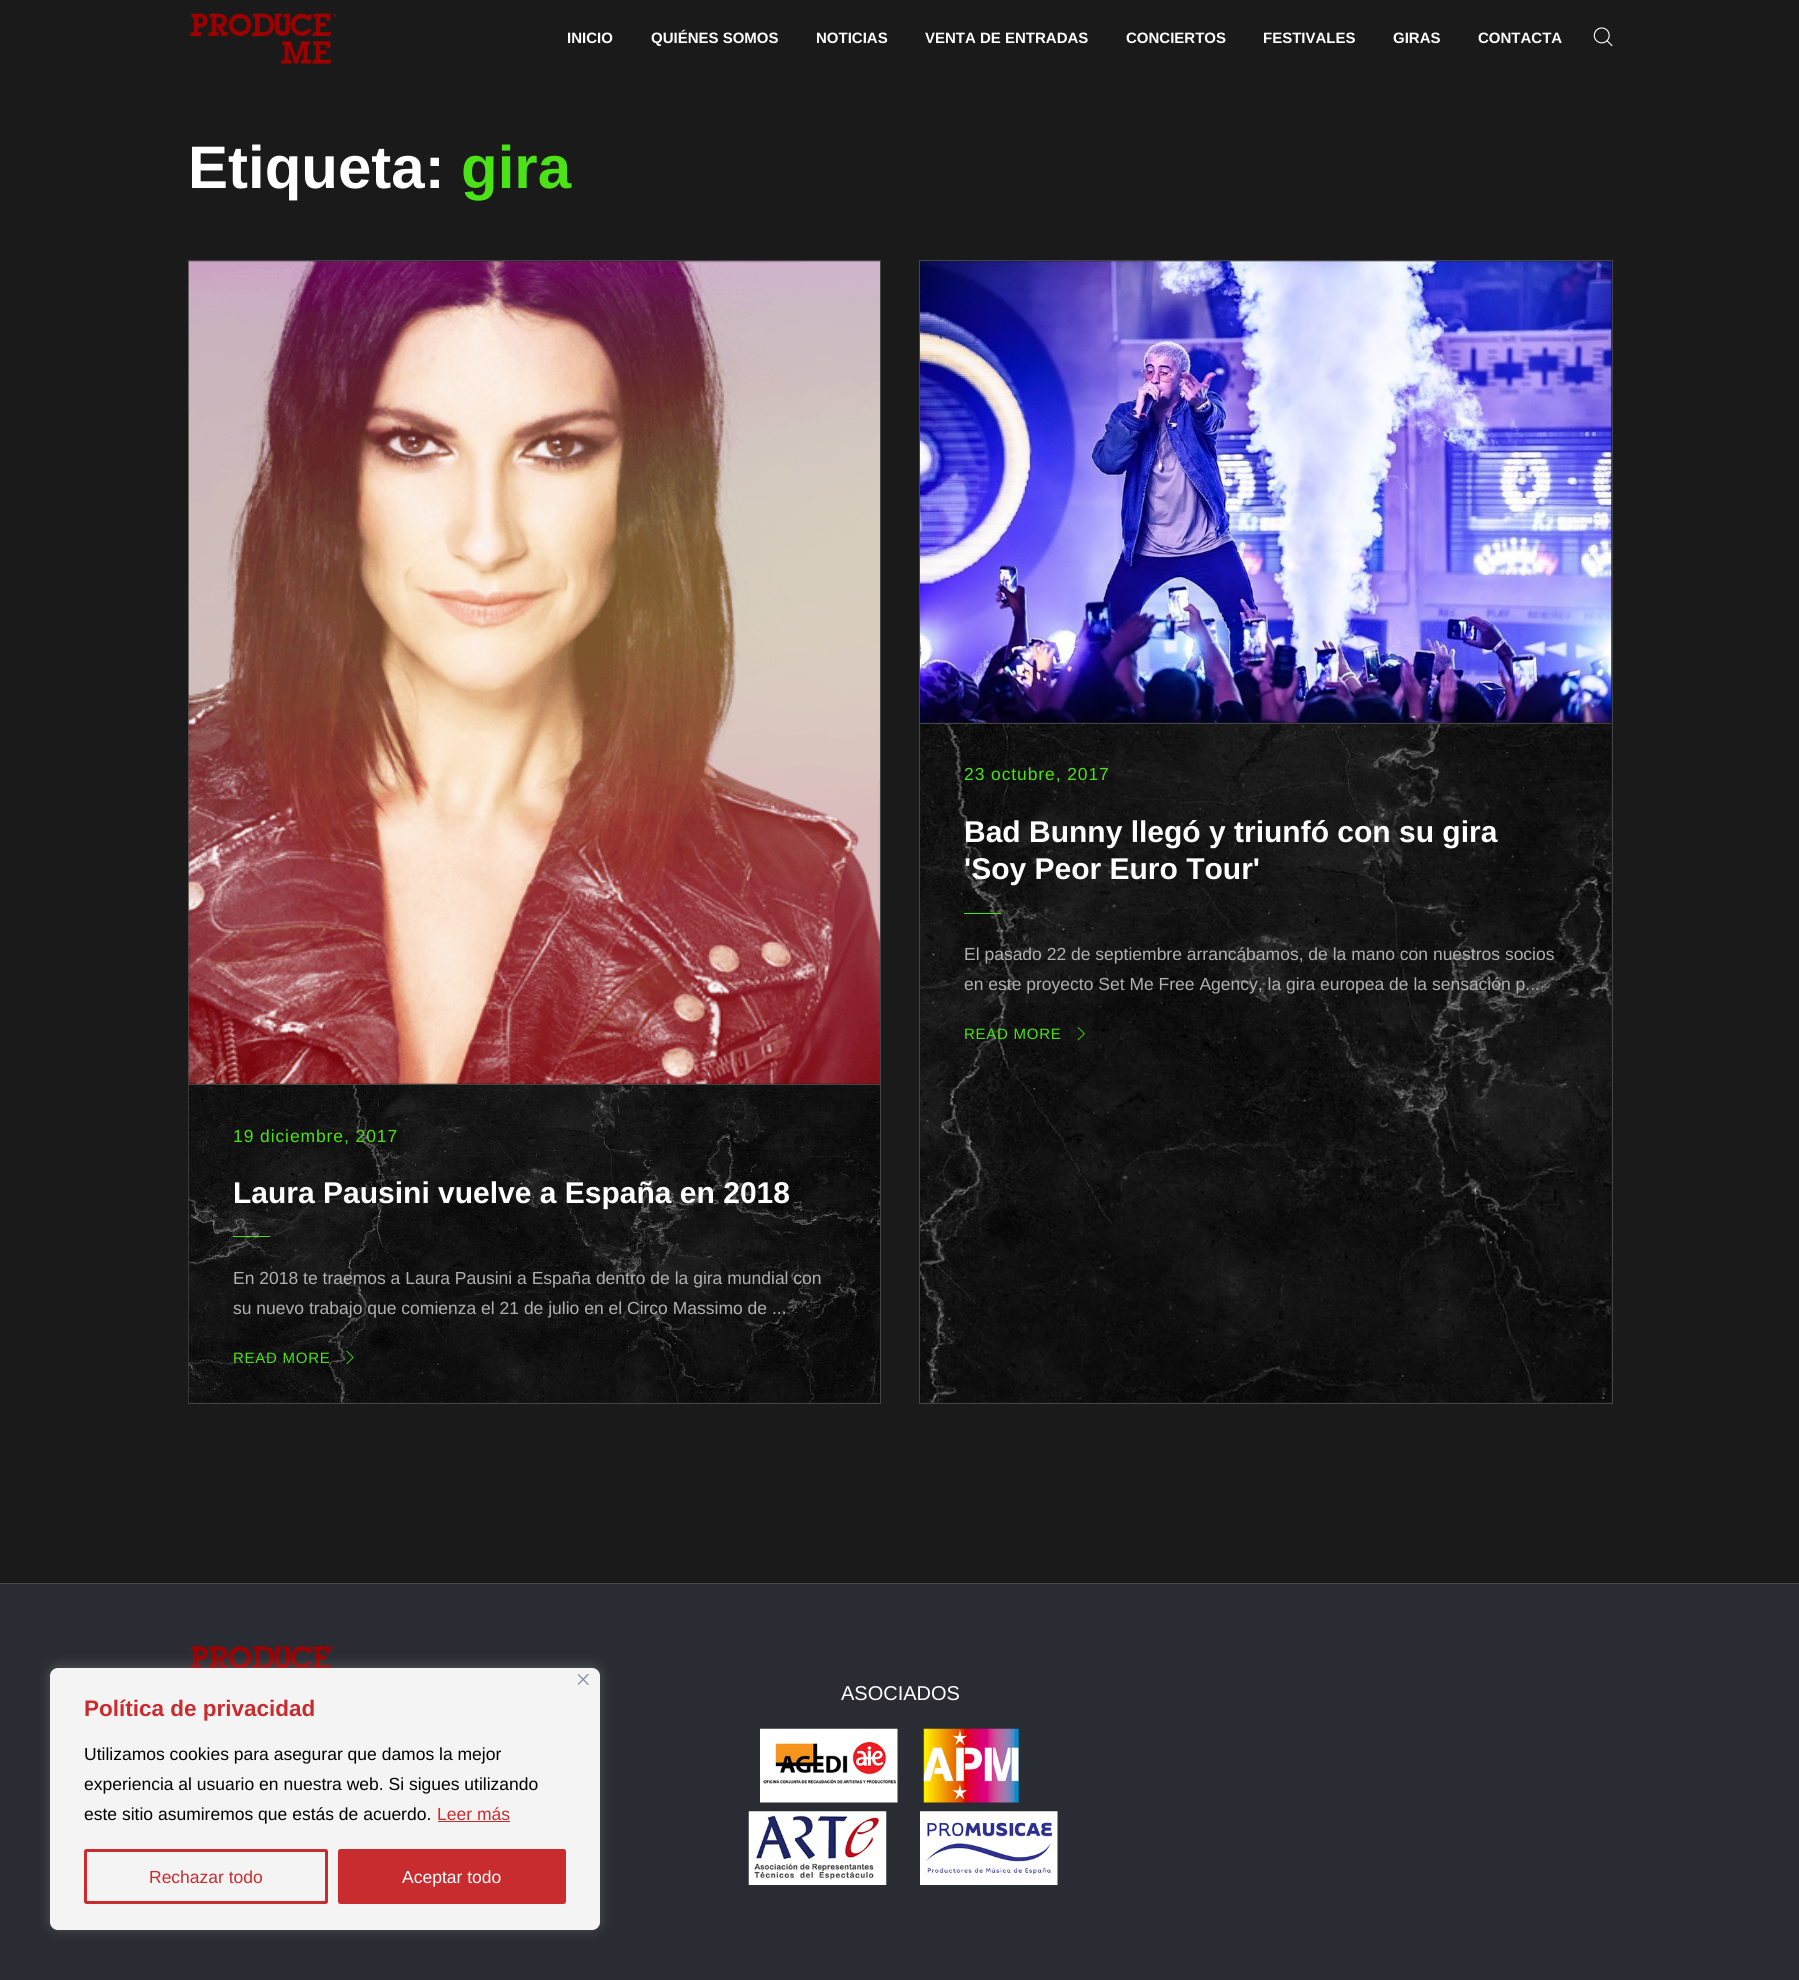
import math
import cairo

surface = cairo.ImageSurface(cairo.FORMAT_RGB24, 1799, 1980)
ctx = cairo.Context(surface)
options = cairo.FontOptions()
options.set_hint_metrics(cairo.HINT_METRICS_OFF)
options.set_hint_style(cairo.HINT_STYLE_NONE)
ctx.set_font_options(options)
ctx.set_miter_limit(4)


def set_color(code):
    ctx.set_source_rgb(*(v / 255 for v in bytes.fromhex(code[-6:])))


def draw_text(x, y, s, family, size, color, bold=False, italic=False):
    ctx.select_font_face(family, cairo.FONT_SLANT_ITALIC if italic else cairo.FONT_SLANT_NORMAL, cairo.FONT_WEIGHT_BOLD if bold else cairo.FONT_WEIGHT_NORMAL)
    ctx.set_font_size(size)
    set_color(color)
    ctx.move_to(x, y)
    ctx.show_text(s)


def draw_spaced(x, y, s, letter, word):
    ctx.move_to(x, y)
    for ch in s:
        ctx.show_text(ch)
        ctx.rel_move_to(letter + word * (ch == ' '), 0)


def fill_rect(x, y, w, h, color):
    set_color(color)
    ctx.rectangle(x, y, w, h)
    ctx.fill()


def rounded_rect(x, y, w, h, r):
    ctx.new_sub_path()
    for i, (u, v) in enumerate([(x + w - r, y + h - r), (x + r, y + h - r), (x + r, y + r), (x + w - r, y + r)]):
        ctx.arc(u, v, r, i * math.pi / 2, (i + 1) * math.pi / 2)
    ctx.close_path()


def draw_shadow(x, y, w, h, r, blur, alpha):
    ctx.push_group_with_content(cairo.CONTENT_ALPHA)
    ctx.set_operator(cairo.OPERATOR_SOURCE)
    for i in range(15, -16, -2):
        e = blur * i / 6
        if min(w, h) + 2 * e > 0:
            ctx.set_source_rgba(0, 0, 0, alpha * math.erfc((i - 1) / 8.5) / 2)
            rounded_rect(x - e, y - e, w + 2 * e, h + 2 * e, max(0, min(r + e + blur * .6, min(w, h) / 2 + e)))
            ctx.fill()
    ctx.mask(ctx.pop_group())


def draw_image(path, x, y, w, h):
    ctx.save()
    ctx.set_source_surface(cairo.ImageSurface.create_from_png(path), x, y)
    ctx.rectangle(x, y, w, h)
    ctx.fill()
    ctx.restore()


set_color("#1a1a1a")
ctx.paint()
draw_image("assets/img1.png", 189, 13, 148, 51)
draw_text(567, 43, "INICIO", "Liberation Sans", 15, "#ffffff", bold=True)
draw_text(651, 43, "QUIÉNES SOMOS", "Liberation Sans", 15, "#ffffff", bold=True)
draw_text(816, 43, "NOTICIAS", "Liberation Sans", 15, "#ffffff", bold=True)
draw_text(925, 43, "VENTA DE ENTRADAS", "Liberation Sans", 15, "#ffffff", bold=True)
draw_text(1126, 43, "CONCIERTOS", "Liberation Sans", 15, "#ffffff", bold=True)
draw_text(1263, 43, "FESTIVALES", "Liberation Sans", 15, "#ffffff", bold=True)
draw_text(1393, 43, "GIRAS", "Liberation Sans", 15, "#ffffff", bold=True)
draw_text(1478, 43, "CONTACTA", "Liberation Sans", 15, "#ffffff", bold=True)
draw_image("assets/img2.png", 1593, 27, 20, 20)
draw_text(188, 188, "Etiqueta:", "Liberation Sans", 60, "#ffffff", bold=True)
draw_text(461, 188, "gira", "Liberation Sans", 60, "#4be218", bold=True)
ctx.rectangle(919.5, 260.5, 693, 1143)
set_color("#444444")
ctx.set_line_width(1)
ctx.stroke()
draw_image("assets/img4.png", 920, 723, 692, 680)
fill_rect(920, 723, 691, 1, "#444444")
draw_image("assets/img3.png", 920, 261, 692, 462)
ctx.select_font_face("Liberation Sans")
ctx.set_font_size(17.5)
set_color("#4be218")
draw_spaced(964, 780, "23 octubre, 2017", 0.9, 0)
draw_text(964, 842, "Bad Bunny llegó y triunfó con su gira", "Liberation Sans", 30, "#ffffff", bold=True)
draw_text(964, 879, "'Soy Peor Euro Tour'", "Liberation Sans", 30, "#ffffff", bold=True)
fill_rect(964, 913, 37, 1, "#4be218")
draw_text(964, 960, "El pasado 22 de septiembre arrancábamos, de la mano con nuestros socios", "Liberation Sans", 17.5, "#b1b0b0")
draw_text(964, 990, "en este proyecto Set Me Free Agency, la gira europea de la sensación p...", "Liberation Sans", 17.5, "#b1b0b0")
ctx.set_font_size(15)
set_color("#4be218")
draw_spaced(964, 1039, "READ MORE", 0.75, 0)
draw_image("assets/img5.png", 1077, 1027, 8, 14)
ctx.rectangle(188.5, 260.5, 692, 1143)
set_color("#444444")
ctx.stroke()
fill_rect(189, 1084, 691, 1, "#444444")
draw_image("assets/img6.png", 188, 261, 692, 823)
draw_image("assets/img7.png", 188, 1085, 692, 318)
ctx.set_font_size(17.5)
set_color("#4be218")
draw_spaced(233, 1142, "19 diciembre, 2017", 0.9, 0)
draw_text(233, 1203, "Laura Pausini vuelve a España en 2018", "Liberation Sans", 30, "#ffffff", bold=True)
fill_rect(233, 1236, 37, 1, "#4be218")
draw_text(233, 1284, "En 2018 te traemos a Laura Pausini a España dentro de la gira mundial con", "Liberation Sans", 17.5, "#b1b0b0")
draw_text(233, 1314, "su nuevo trabajo que comienza el 21 de julio en el Circo Massimo de ...", "Liberation Sans", 17.5, "#b1b0b0")
ctx.set_font_size(15)
set_color("#4be218")
draw_spaced(233, 1363, "READ MORE", 0.75, 0)
draw_image("assets/img8.png", 346, 1350, 8, 15)
fill_rect(0, 1584, 1799, 396, "#292d33")
fill_rect(0, 1583, 1799, 1, "#484848")
draw_image("assets/img9.png", 190, 1645, 147, 23)
draw_text(841, 1700, "ASOCIADOS", "Liberation Sans", 20, "#ffffff")
draw_image("assets/img10.png", 760, 1728, 138, 75)
draw_image("assets/img11.png", 923, 1728, 96, 75)
draw_image("assets/img12.png", 748, 1811, 139, 74)
draw_image("assets/img13.png", 920, 1811, 138, 74)
set_color("#acabab")
draw_shadow(50, 1666, 550, 263, 8, 6, 0.3)
set_color("#f4f4f4")
rounded_rect(50.5, 1668.5, 549, 261, 7.5)
ctx.fill_preserve()
ctx.stroke()
draw_image("assets/img14.png", 578, 1674, 11, 11)
draw_text(84, 1716, "Política de privacidad", "Liberation Sans", 22.5, "#c92c2f", bold=True)
draw_text(84, 1760, "Utilizamos cookies para asegurar que damos la mejor", "Liberation Sans", 17.5, "#000000")
draw_text(84, 1790, "experiencia al usuario en nuestra web. Si sigues utilizando", "Liberation Sans", 17.5, "#000000")
draw_text(84, 1820, "este sitio asumiremos que estás de acuerdo.", "Liberation Sans", 17.5, "#000000")
draw_text(437, 1820, "Leer más", "Liberation Sans", 17.5, "#c92c2f")
fill_rect(438, 1821, 72, 1, "#c92c2f")
rounded_rect(85.5, 1850.5, 241, 52, 1)
ctx.set_line_width(3)
ctx.stroke()
draw_text(149, 1883, "Rechazar todo", "Liberation Sans", 17.5, "#c92c2f")
rounded_rect(339.5, 1850.5, 225, 52, 1)
ctx.fill_preserve()
ctx.stroke()
draw_text(402, 1883, "Aceptar todo", "Liberation Sans", 17.5, "#ffffff")
surface.write_to_png("output.png")
